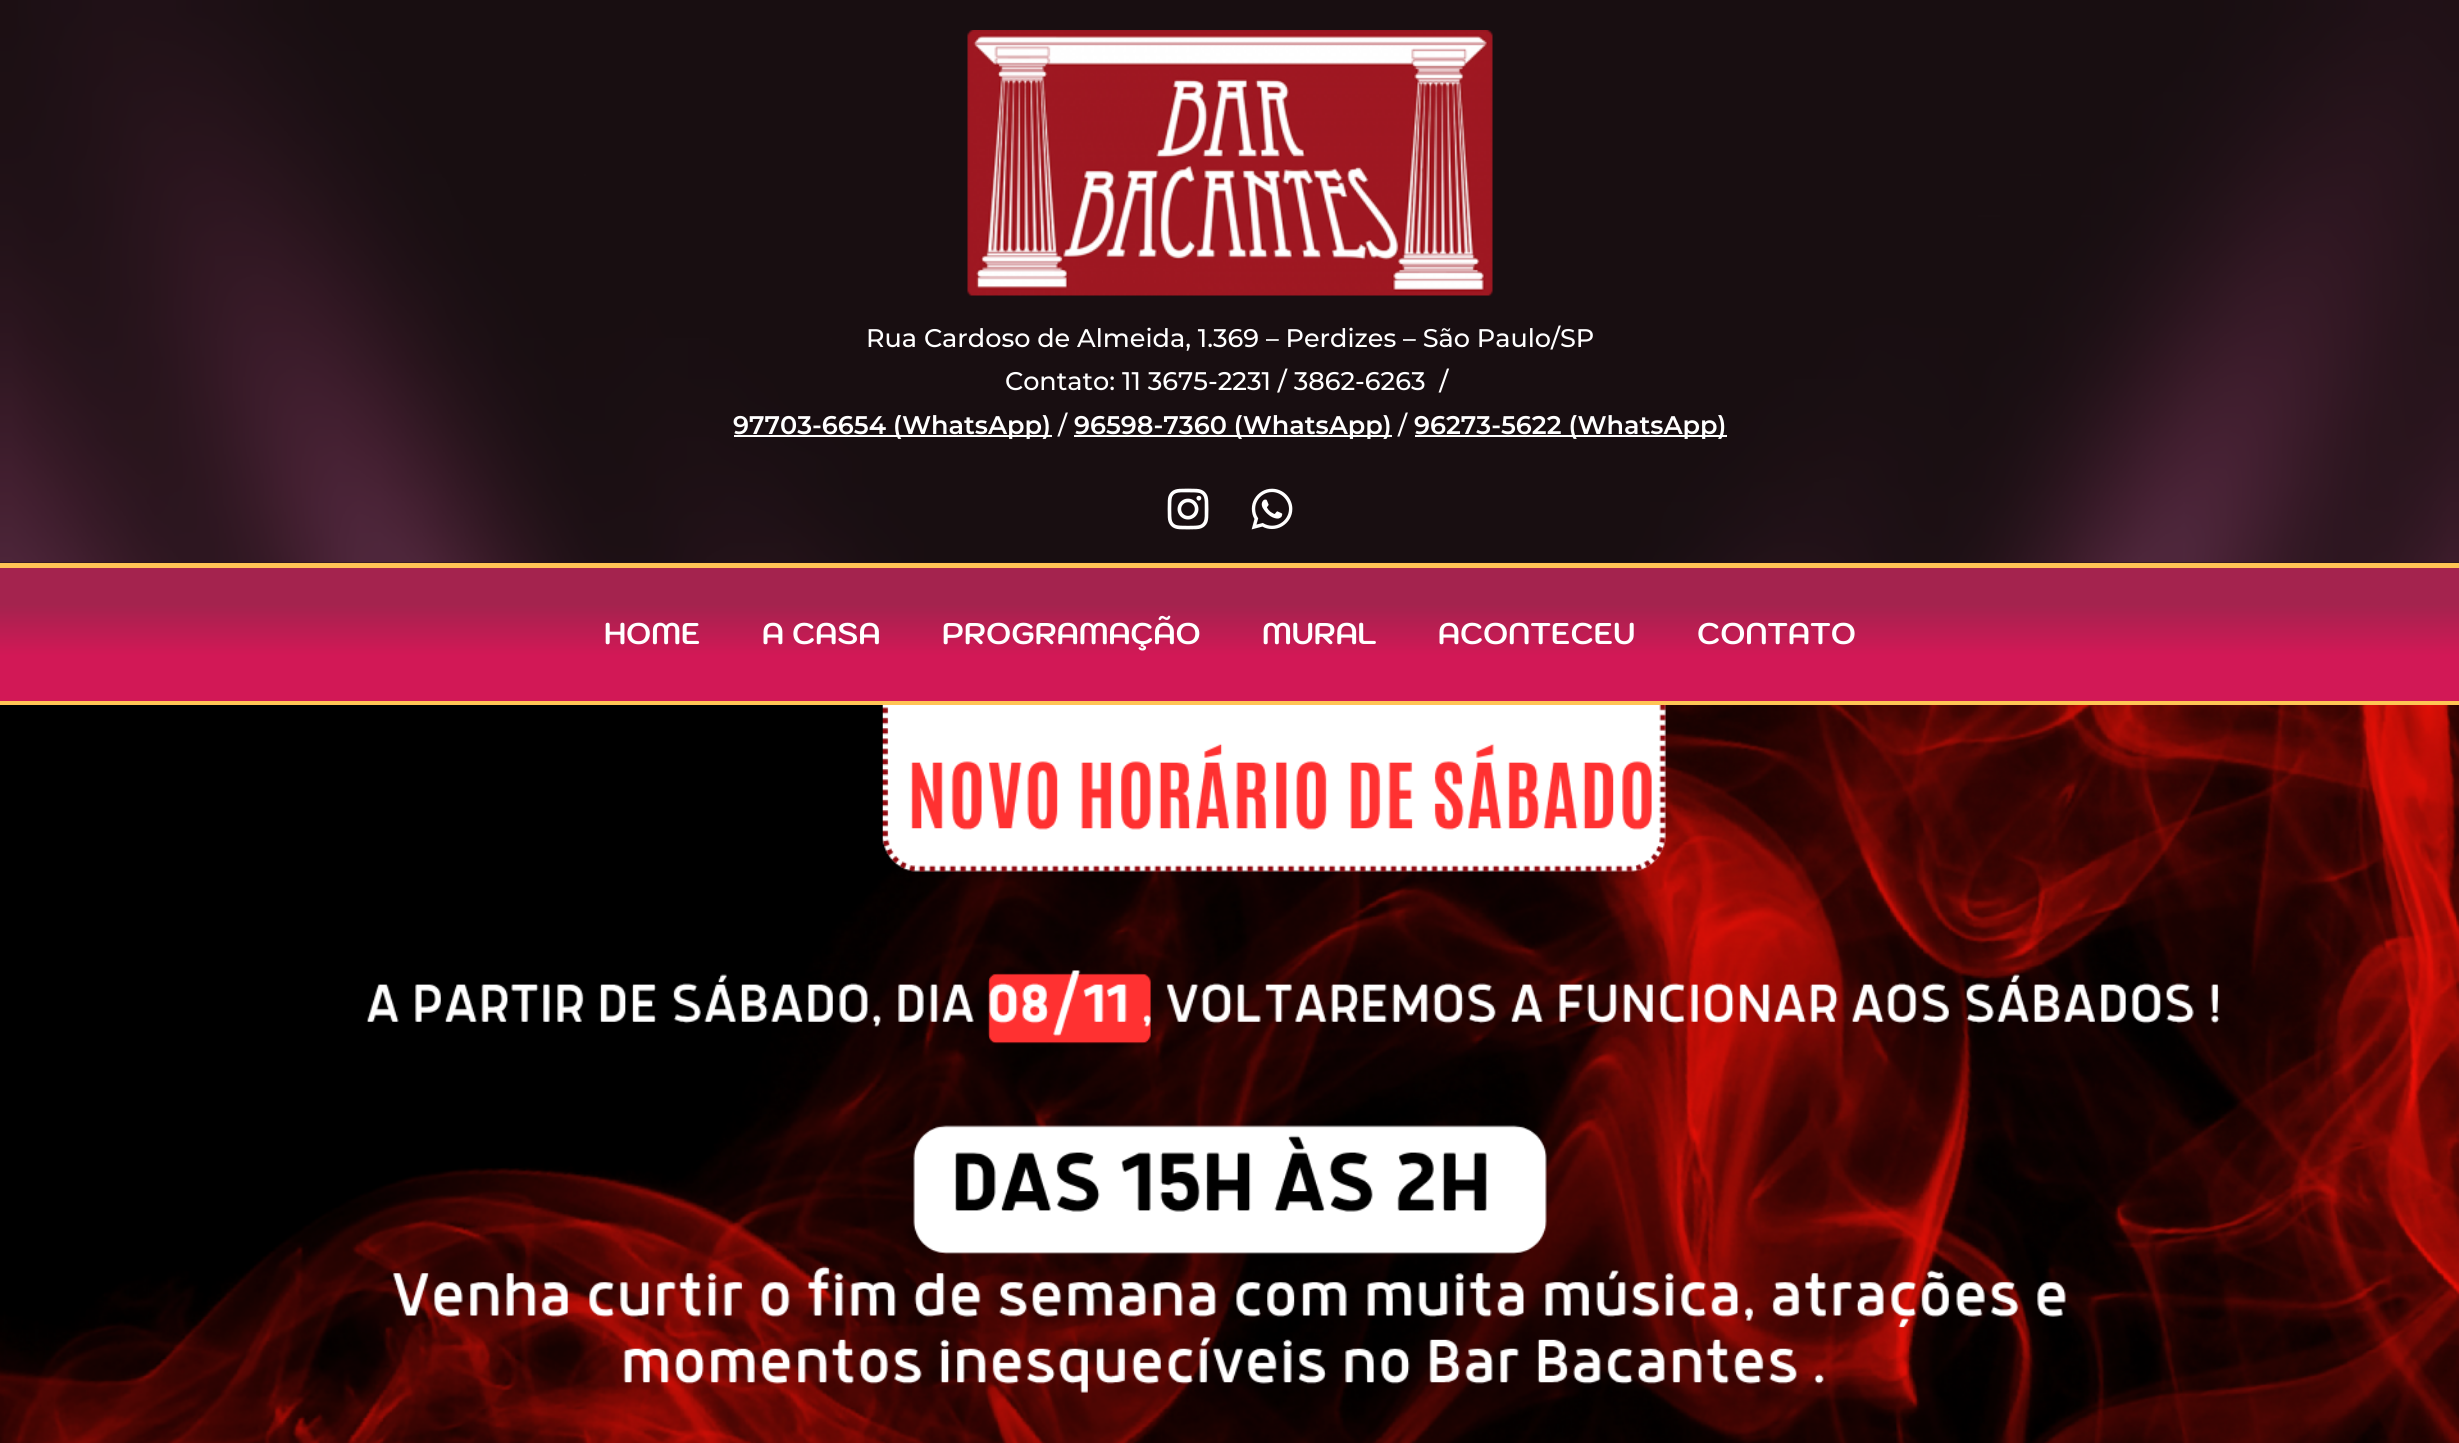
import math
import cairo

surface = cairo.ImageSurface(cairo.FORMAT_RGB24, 2459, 1443)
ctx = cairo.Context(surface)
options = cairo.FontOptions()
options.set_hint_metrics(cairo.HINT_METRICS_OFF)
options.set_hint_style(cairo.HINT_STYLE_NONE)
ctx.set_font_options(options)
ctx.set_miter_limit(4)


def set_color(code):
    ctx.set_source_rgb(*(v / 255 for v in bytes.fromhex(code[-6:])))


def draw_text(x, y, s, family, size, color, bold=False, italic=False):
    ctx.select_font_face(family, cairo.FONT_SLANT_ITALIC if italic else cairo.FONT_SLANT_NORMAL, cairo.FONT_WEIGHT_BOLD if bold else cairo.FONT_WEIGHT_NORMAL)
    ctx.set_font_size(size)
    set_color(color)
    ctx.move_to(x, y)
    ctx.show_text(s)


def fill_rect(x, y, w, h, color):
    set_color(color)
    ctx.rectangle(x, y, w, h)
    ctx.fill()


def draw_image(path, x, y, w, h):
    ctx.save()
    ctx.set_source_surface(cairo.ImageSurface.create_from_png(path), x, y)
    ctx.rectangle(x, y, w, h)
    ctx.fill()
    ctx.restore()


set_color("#201317")
ctx.paint()
draw_image("assets/img1.png", 0, 0, 2459, 563)
draw_image("assets/img2.png", 967, 30, 526, 266)
draw_text(866, 347, "Rua Cardoso de Almeida, 1.369 – Perdizes – São Paulo/SP", "Montserrat Medium", 25.5, "#ffffff")
draw_text(1005, 390, "Contato: 11 3675-2231 / 3862-6263  /", "Montserrat Medium", 25.5, "#ffffff")
fill_rect(734, 435, 318, 2, "#ffffff")
draw_text(733, 434, "97703-6654 (WhatsApp)", "Montserrat SemiBold", 25.5, "#ffffff")
draw_text(1058, 434, "/", "Montserrat Medium", 25.5, "#ffffff")
fill_rect(1074, 435, 318, 2, "#ffffff")
draw_text(1074, 434, "96598-7360 (WhatsApp)", "Montserrat SemiBold", 25.5, "#ffffff")
draw_text(1398, 434, "/", "Montserrat Medium", 25.5, "#ffffff")
fill_rect(1415, 435, 312, 2, "#ffffff")
draw_text(1414, 434, "96273-5622 (WhatsApp)", "Montserrat SemiBold", 25.5, "#ffffff")
draw_image("assets/img3.png", 1167, 488, 42, 42)
draw_image("assets/img4.png", 1251, 488, 42, 42)
gradient = cairo.LinearGradient(1230, 567, 1230, 701)
gradient.add_color_stop_rgba(0.28, 0.643, 0.137, 0.306, 1)
gradient.add_color_stop_rgba(0.66, 0.824, 0.094, 0.337, 1)
ctx.set_source(gradient)
ctx.rectangle(0, 568, 2459, 133)
ctx.fill()
fill_rect(0, 563, 2459, 5, "#ffc455")
fill_rect(0, 701, 2459, 4, "#ffc455")
draw_text(604, 644, "HOME", "Kodchasan", 30, "#ffffff", bold=True)
draw_text(762, 644, "A CASA", "Kodchasan", 30, "#ffffff", bold=True)
draw_text(942, 644, "PROGRAMAÇÃO", "Kodchasan", 30, "#ffffff", bold=True)
draw_text(1262, 644, "MURAL", "Kodchasan", 30, "#ffffff", bold=True)
draw_text(1438, 644, "ACONTECEU", "Kodchasan", 30, "#ffffff", bold=True)
draw_text(1697, 644, "CONTATO", "Kodchasan", 30, "#ffffff", bold=True)
draw_image("assets/img5.png", 0, 705, 2459, 738)
surface.write_to_png("output.png")
